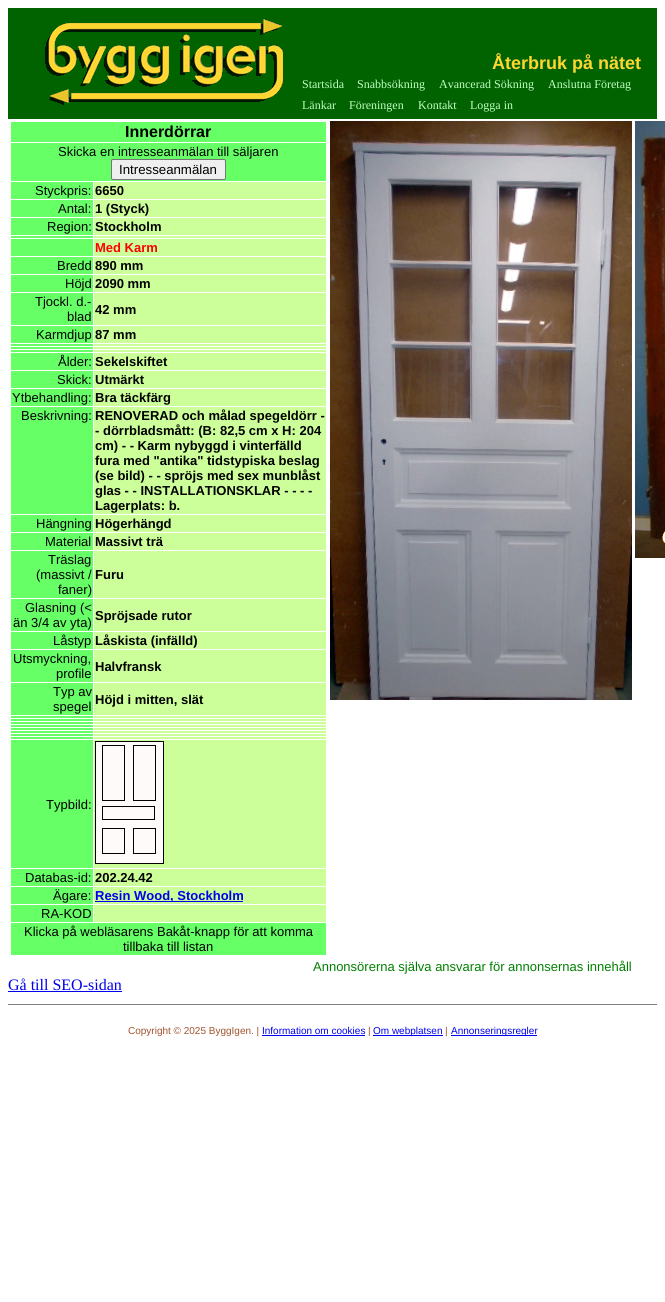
import math
import cairo

surface = cairo.ImageSurface(cairo.FORMAT_RGB24, 665, 1302)
ctx = cairo.Context(surface)
options = cairo.FontOptions()
options.set_hint_metrics(cairo.HINT_METRICS_OFF)
options.set_hint_style(cairo.HINT_STYLE_NONE)
ctx.set_font_options(options)
ctx.set_miter_limit(4)


def set_color(code):
    ctx.set_source_rgb(*(v / 255 for v in bytes.fromhex(code[-6:])))


def draw_text(x, y, s, family, size, color, bold=False, italic=False):
    ctx.select_font_face(family, cairo.FONT_SLANT_ITALIC if italic else cairo.FONT_SLANT_NORMAL, cairo.FONT_WEIGHT_BOLD if bold else cairo.FONT_WEIGHT_NORMAL)
    ctx.set_font_size(size)
    set_color(color)
    ctx.move_to(x, y)
    ctx.show_text(s)


def fill_rect(x, y, w, h, color):
    set_color(color)
    ctx.rectangle(x, y, w, h)
    ctx.fill()


def rounded_rect(x, y, w, h, r):
    ctx.new_sub_path()
    for i, (u, v) in enumerate([(x + w - r, y + h - r), (x + r, y + h - r), (x + r, y + r), (x + w - r, y + r)]):
        ctx.arc(u, v, r, i * math.pi / 2, (i + 1) * math.pi / 2)
    ctx.close_path()


def draw_image(path, x, y, w, h):
    ctx.save()
    ctx.set_source_surface(cairo.ImageSurface.create_from_png(path), x, y)
    ctx.rectangle(x, y, w, h)
    ctx.fill()
    ctx.restore()


set_color("#ffffff")
ctx.paint()
fill_rect(8, 8, 649, 111, "#006300")
draw_image("assets/img1.png", 45, 19, 238, 86)
draw_text(492, 69, "Återbruk på nätet", "Liberation Sans", 18, "#ffd631", bold=True)
draw_text(302, 88, "Startsida", "Liberation Serif", 12, "#c0ffc0")
draw_text(357, 88, "Snabbsökning", "Liberation Serif", 12, "#c0ffc0")
draw_text(439, 88, "Avancerad Sökning", "Liberation Serif", 12, "#c0ffc0")
draw_text(548, 88, "Anslutna Företag", "Liberation Serif", 12, "#c0ffc0")
draw_text(302, 109, "Länkar", "Liberation Serif", 12, "#c0ffc0")
draw_text(349, 109, "Föreningen", "Liberation Serif", 12, "#c0ffc0")
draw_text(418, 109, "Kontakt", "Liberation Serif", 12, "#c0ffc0")
draw_text(470, 109, "Logga in", "Liberation Serif", 12, "#c0ffc0")
fill_rect(11, 122, 315, 20, "#66ff66")
draw_text(125, 137, "Innerdörrar", "Liberation Sans", 16, "#000000", bold=True)
fill_rect(11, 143, 315, 38, "#66ff66")
draw_text(58, 156, "Skicka en intresseanmälan till säljaren", "Liberation Sans", 13, "#000000")
set_color("#efefef")
rounded_rect(111.5, 159.5, 114, 20, 1.5)
ctx.fill_preserve()
set_color("#767676")
ctx.set_line_width(1)
ctx.stroke()
draw_text(119, 174, "Intresseanmälan", "Liberation Sans", 13.25, "#000000")
fill_rect(11, 182, 82, 17, "#66ff66")
draw_text(35, 195, "Styckpris:", "Liberation Sans", 13, "#000000")
fill_rect(94, 182, 232, 17, "#ccff99")
draw_text(95, 195, "6650", "Liberation Sans", 13, "#000000", bold=True)
fill_rect(11, 200, 82, 17, "#66ff66")
draw_text(58, 213, "Antal:", "Liberation Sans", 13, "#000000")
fill_rect(94, 200, 232, 17, "#ccff99")
draw_text(95, 213, "1 (Styck)", "Liberation Sans", 13, "#000000", bold=True)
fill_rect(11, 218, 82, 17, "#66ff66")
draw_text(47, 231, "Region:", "Liberation Sans", 13, "#000000")
fill_rect(94, 218, 232, 17, "#ccff99")
draw_text(95, 231, "Stockholm", "Liberation Sans", 13, "#000000", bold=True)
fill_rect(11, 236, 82, 2, "#66ff66")
fill_rect(94, 236, 232, 2, "#ccff99")
fill_rect(11, 239, 82, 17, "#66ff66")
fill_rect(94, 239, 232, 17, "#ccff99")
draw_text(95, 252, "Med Karm", "Liberation Sans", 13, "#ff0000", bold=True)
fill_rect(11, 257, 82, 17, "#66ff66")
draw_text(57, 270, "Bredd", "Liberation Sans", 13, "#000000")
fill_rect(94, 257, 232, 17, "#ccff99")
draw_text(95, 270, "890 mm", "Liberation Sans", 13, "#000000", bold=True)
fill_rect(11, 275, 82, 17, "#66ff66")
draw_text(65, 288, "Höjd", "Liberation Sans", 13, "#000000")
fill_rect(94, 275, 232, 17, "#ccff99")
draw_text(95, 288, "2090 mm", "Liberation Sans", 13, "#000000", bold=True)
fill_rect(11, 293, 82, 32, "#66ff66")
draw_text(35, 306, "Tjockl. d.-", "Liberation Sans", 13, "#000000")
draw_text(67, 321, "blad", "Liberation Sans", 13, "#000000")
fill_rect(94, 293, 232, 32, "#ccff99")
draw_text(95, 314, "42 mm", "Liberation Sans", 13, "#000000", bold=True)
fill_rect(11, 326, 82, 17, "#66ff66")
draw_text(36, 339, "Karmdjup", "Liberation Sans", 13, "#000000")
fill_rect(94, 326, 232, 17, "#ccff99")
draw_text(95, 339, "87 mm", "Liberation Sans", 13, "#000000", bold=True)
fill_rect(11, 344, 82, 2, "#66ff66")
fill_rect(94, 344, 232, 2, "#ccff99")
fill_rect(11, 347, 82, 2, "#66ff66")
fill_rect(94, 347, 232, 2, "#ccff99")
fill_rect(11, 350, 82, 2, "#66ff66")
fill_rect(94, 350, 232, 2, "#ccff99")
fill_rect(11, 353, 82, 17, "#66ff66")
draw_text(58, 366, "Ålder:", "Liberation Sans", 13, "#000000")
fill_rect(94, 353, 232, 17, "#ccff99")
draw_text(95, 366, "Sekelskiftet", "Liberation Sans", 13, "#000000", bold=True)
fill_rect(11, 371, 82, 17, "#66ff66")
draw_text(57, 384, "Skick:", "Liberation Sans", 13, "#000000")
fill_rect(94, 371, 232, 17, "#ccff99")
draw_text(95, 384, "Utmärkt", "Liberation Sans", 13, "#000000", bold=True)
fill_rect(11, 389, 82, 17, "#66ff66")
draw_text(12, 402, "Ytbehandling:", "Liberation Sans", 13, "#000000")
fill_rect(94, 389, 232, 17, "#ccff99")
draw_text(95, 402, "Bra täckfärg", "Liberation Sans", 13, "#000000", bold=True)
fill_rect(11, 407, 82, 107, "#66ff66")
draw_text(21, 420, "Beskrivning:", "Liberation Sans", 13, "#000000")
fill_rect(94, 407, 232, 107, "#ccff99")
draw_text(95, 420, "RENOVERAD och målad spegeldörr -", "Liberation Sans", 13, "#000000", bold=True)
draw_text(95, 435, "- dörrbladsmått: (B: 82,5 cm x H: 204", "Liberation Sans", 13, "#000000", bold=True)
draw_text(95, 450, "cm) - - Karm nybyggd i vinterfälld", "Liberation Sans", 13, "#000000", bold=True)
draw_text(95, 465, "fura med \"antika\" tidstypiska beslag", "Liberation Sans", 13, "#000000", bold=True)
draw_text(95, 480, "(se bild) - - spröjs med sex munblåst", "Liberation Sans", 13, "#000000", bold=True)
draw_text(95, 495, "glas - - INSTALLATIONSKLAR - - - -", "Liberation Sans", 13, "#000000", bold=True)
draw_text(95, 510, "Lagerplats: b.", "Liberation Sans", 13, "#000000", bold=True)
fill_rect(11, 515, 82, 17, "#66ff66")
draw_text(36, 528, "Hängning", "Liberation Sans", 13, "#000000")
fill_rect(94, 515, 232, 17, "#ccff99")
draw_text(95, 528, "Högerhängd", "Liberation Sans", 13, "#000000", bold=True)
fill_rect(11, 533, 82, 17, "#66ff66")
draw_text(45, 546, "Material", "Liberation Sans", 13, "#000000")
fill_rect(94, 533, 232, 17, "#ccff99")
draw_text(95, 546, "Massivt trä", "Liberation Sans", 13, "#000000", bold=True)
fill_rect(11, 551, 82, 47, "#66ff66")
draw_text(48, 564, "Träslag", "Liberation Sans", 13, "#000000")
draw_text(36, 579, "(massivt /", "Liberation Sans", 13, "#000000")
draw_text(58, 594, "faner)", "Liberation Sans", 13, "#000000")
fill_rect(94, 551, 232, 47, "#ccff99")
draw_text(95, 579, "Furu", "Liberation Sans", 13, "#000000", bold=True)
fill_rect(11, 599, 82, 32, "#66ff66")
draw_text(25, 612, "Glasning (<", "Liberation Sans", 13, "#000000")
draw_text(13, 627, "än 3/4 av yta)", "Liberation Sans", 13, "#000000")
fill_rect(94, 599, 232, 32, "#ccff99")
draw_text(95, 620, "Spröjsade rutor", "Liberation Sans", 13, "#000000", bold=True)
fill_rect(11, 632, 82, 17, "#66ff66")
draw_text(53, 645, "Låstyp", "Liberation Sans", 13, "#000000")
fill_rect(94, 632, 232, 17, "#ccff99")
draw_text(95, 645, "Låskista (infälld)", "Liberation Sans", 13, "#000000", bold=True)
fill_rect(11, 650, 82, 32, "#66ff66")
draw_text(13, 663, "Utsmyckning,", "Liberation Sans", 13, "#000000")
draw_text(56, 678, "profile", "Liberation Sans", 13, "#000000")
fill_rect(94, 650, 232, 32, "#ccff99")
draw_text(95, 671, "Halvfransk", "Liberation Sans", 13, "#000000", bold=True)
fill_rect(11, 683, 82, 32, "#66ff66")
draw_text(53, 696, "Typ av", "Liberation Sans", 13, "#000000")
draw_text(53, 711, "spegel", "Liberation Sans", 13, "#000000")
fill_rect(94, 683, 232, 32, "#ccff99")
draw_text(95, 704, "Höjd i mitten, slät", "Liberation Sans", 13, "#000000", bold=True)
fill_rect(11, 716, 82, 2, "#66ff66")
fill_rect(94, 716, 232, 2, "#ccff99")
fill_rect(11, 719, 82, 2, "#66ff66")
fill_rect(94, 719, 232, 2, "#ccff99")
fill_rect(11, 722, 82, 2, "#66ff66")
fill_rect(94, 722, 232, 2, "#ccff99")
fill_rect(11, 725, 82, 2, "#66ff66")
fill_rect(94, 725, 232, 2, "#ccff99")
fill_rect(11, 728, 82, 2, "#66ff66")
fill_rect(94, 728, 232, 2, "#ccff99")
fill_rect(11, 731, 82, 2, "#66ff66")
fill_rect(94, 731, 232, 2, "#ccff99")
fill_rect(11, 734, 82, 2, "#66ff66")
fill_rect(94, 734, 232, 2, "#ccff99")
fill_rect(11, 737, 82, 2, "#66ff66")
fill_rect(94, 737, 232, 2, "#ccff99")
fill_rect(11, 740, 82, 128, "#66ff66")
draw_text(46, 809, "Typbild:", "Liberation Sans", 13, "#000000")
fill_rect(94, 740, 232, 128, "#ccff99")
fill_rect(96, 742, 67, 121, "#fffafa")
draw_image("assets/img2.png", 95, 741, 69, 123)
fill_rect(11, 869, 82, 17, "#66ff66")
draw_text(25, 882, "Databas-id:", "Liberation Sans", 13, "#000000")
fill_rect(94, 869, 232, 17, "#ccff99")
draw_text(95, 882, "202.24.42", "Liberation Sans", 13, "#000000", bold=True)
fill_rect(11, 887, 82, 17, "#66ff66")
draw_text(53, 900, "Ägare:", "Liberation Sans", 13, "#000000")
fill_rect(94, 887, 232, 17, "#ccff99")
fill_rect(95, 901, 148, 1, "#0000ee")
draw_text(95, 900, "Resin Wood, Stockholm", "Liberation Sans", 13, "#0000ee", bold=True)
fill_rect(11, 905, 82, 17, "#66ff66")
draw_text(41, 918, "RA-KOD", "Liberation Sans", 13, "#000000")
fill_rect(94, 905, 232, 17, "#ccff99")
fill_rect(11, 923, 315, 32, "#66ff66")
draw_text(24, 936, "Klicka på webläsarens Bakåt-knapp för att komma", "Liberation Sans", 13, "#000000")
draw_text(123, 951, "tillbaka till listan", "Liberation Sans", 13, "#000000")
draw_image("assets/img3.png", 330, 121, 302, 579)
draw_image("assets/img4.png", 635, 121, 30, 437)
draw_text(313, 971, "Annonsörerna själva ansvarar för annonsernas innehåll", "Liberation Sans", 13, "#008000")
draw_text(8, 990, "Gå till SEO-sidan", "Liberation Serif", 16, "#0000ee")
fill_rect(8, 991, 114, 1, "#0000ee")
fill_rect(8, 1004, 649, 1, "#7f7f7f")
draw_text(128, 1034, "Copyright © 2025 ByggIgen. |", "Liberation Sans", 10, "#a0522d")
draw_text(262, 1034, "Information om cookies", "Liberation Sans", 10, "#0000ee")
fill_rect(262, 1035, 103, 1, "#0000ee")
draw_text(368, 1034, "|", "Liberation Sans", 10, "#a0522d")
fill_rect(373, 1035, 70, 1, "#0000ee")
draw_text(373, 1034, "Om webplatsen", "Liberation Sans", 10, "#0000ee")
draw_text(445, 1034, "|", "Liberation Sans", 10, "#a0522d")
fill_rect(451, 1035, 86, 1, "#0000ee")
draw_text(451, 1034, "Annonseringsregler", "Liberation Sans", 10, "#0000ee")
surface.write_to_png("output.png")
